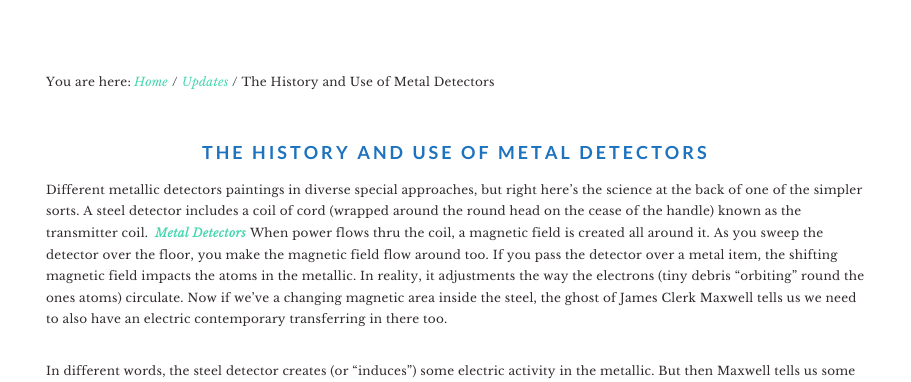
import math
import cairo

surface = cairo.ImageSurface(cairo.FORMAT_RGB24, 911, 382)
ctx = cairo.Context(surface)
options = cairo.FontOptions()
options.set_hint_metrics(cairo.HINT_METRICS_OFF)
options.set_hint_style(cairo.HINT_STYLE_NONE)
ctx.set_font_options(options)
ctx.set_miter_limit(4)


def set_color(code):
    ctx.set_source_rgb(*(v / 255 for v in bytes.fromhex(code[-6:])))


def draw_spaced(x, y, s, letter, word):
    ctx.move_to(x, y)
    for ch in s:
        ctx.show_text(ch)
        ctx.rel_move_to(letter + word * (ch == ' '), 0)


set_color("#ffffff")
ctx.paint()
ctx.select_font_face("Libre Baskerville")
ctx.set_font_size(12)
set_color("#302a2c")
draw_spaced(46, 86, "You are here:", 0.24, 0)
ctx.select_font_face("Libre Baskerville", cairo.FONT_SLANT_ITALIC)
set_color("#44d5af")
draw_spaced(134, 86, "Home", 0.24, 0)
ctx.select_font_face("Libre Baskerville")
set_color("#302a2c")
draw_spaced(172, 86, "/", 0.24, 0)
ctx.select_font_face("Libre Baskerville", cairo.FONT_SLANT_ITALIC)
set_color("#44d5af")
draw_spaced(182, 86, "Updates", 0.24, 0)
ctx.select_font_face("Libre Baskerville")
set_color("#302a2c")
draw_spaced(232, 86, "/ The History and Use of Metal Detectors", 0.24, 0)
ctx.select_font_face("Lato", cairo.FONT_SLANT_NORMAL, cairo.FONT_WEIGHT_BOLD)
ctx.set_font_size(18)
set_color("#1e73be")
draw_spaced(202, 159, "THE HISTORY AND USE OF METAL DETECTORS", 3, 0)
ctx.select_font_face("Libre Baskerville")
ctx.set_font_size(12)
set_color("#302a2c")
draw_spaced(46, 194, "Different metallic detectors paintings in diverse special approaches, but right here’s the science at the back of one of the simpler", 0.24, 0)
draw_spaced(46, 215, "sorts. A steel detector includes a coil of cord (wrapped around the round head on the cease of the handle) known as the", 0.24, 0)
draw_spaced(46, 237, "transmitter coil.", 0.24, 0)
ctx.select_font_face("Libre Baskerville", cairo.FONT_SLANT_ITALIC, cairo.FONT_WEIGHT_BOLD)
set_color("#44d5af")
draw_spaced(155, 237, "Metal Detectors", 0.24, 0)
ctx.select_font_face("Libre Baskerville")
set_color("#302a2c")
draw_spaced(250, 237, "When power flows thru the coil, a magnetic field is created all around it. As you sweep the", 0.24, 0)
draw_spaced(46, 259, "detector over the floor, you make the magnetic field flow around too. If you pass the detector over a metal item, the shifting", 0.24, 0)
draw_spaced(46, 280, "magnetic field impacts the atoms in the metallic. In reality, it adjustments the way the electrons (tiny debris “orbiting” round the", 0.24, 0)
draw_spaced(46, 302, "ones atoms) circulate. Now if we’ve a changing magnetic area inside the steel, the ghost of James Clerk Maxwell tells us we need", 0.24, 0)
draw_spaced(46, 323, "to also have an electric contemporary transferring in there too.", 0.24, 0)
draw_spaced(46, 375, "In different words, the steel detector creates (or “induces”) some electric activity in the metallic. But then Maxwell tells us some", 0.24, 0)
surface.write_to_png("output.png")
